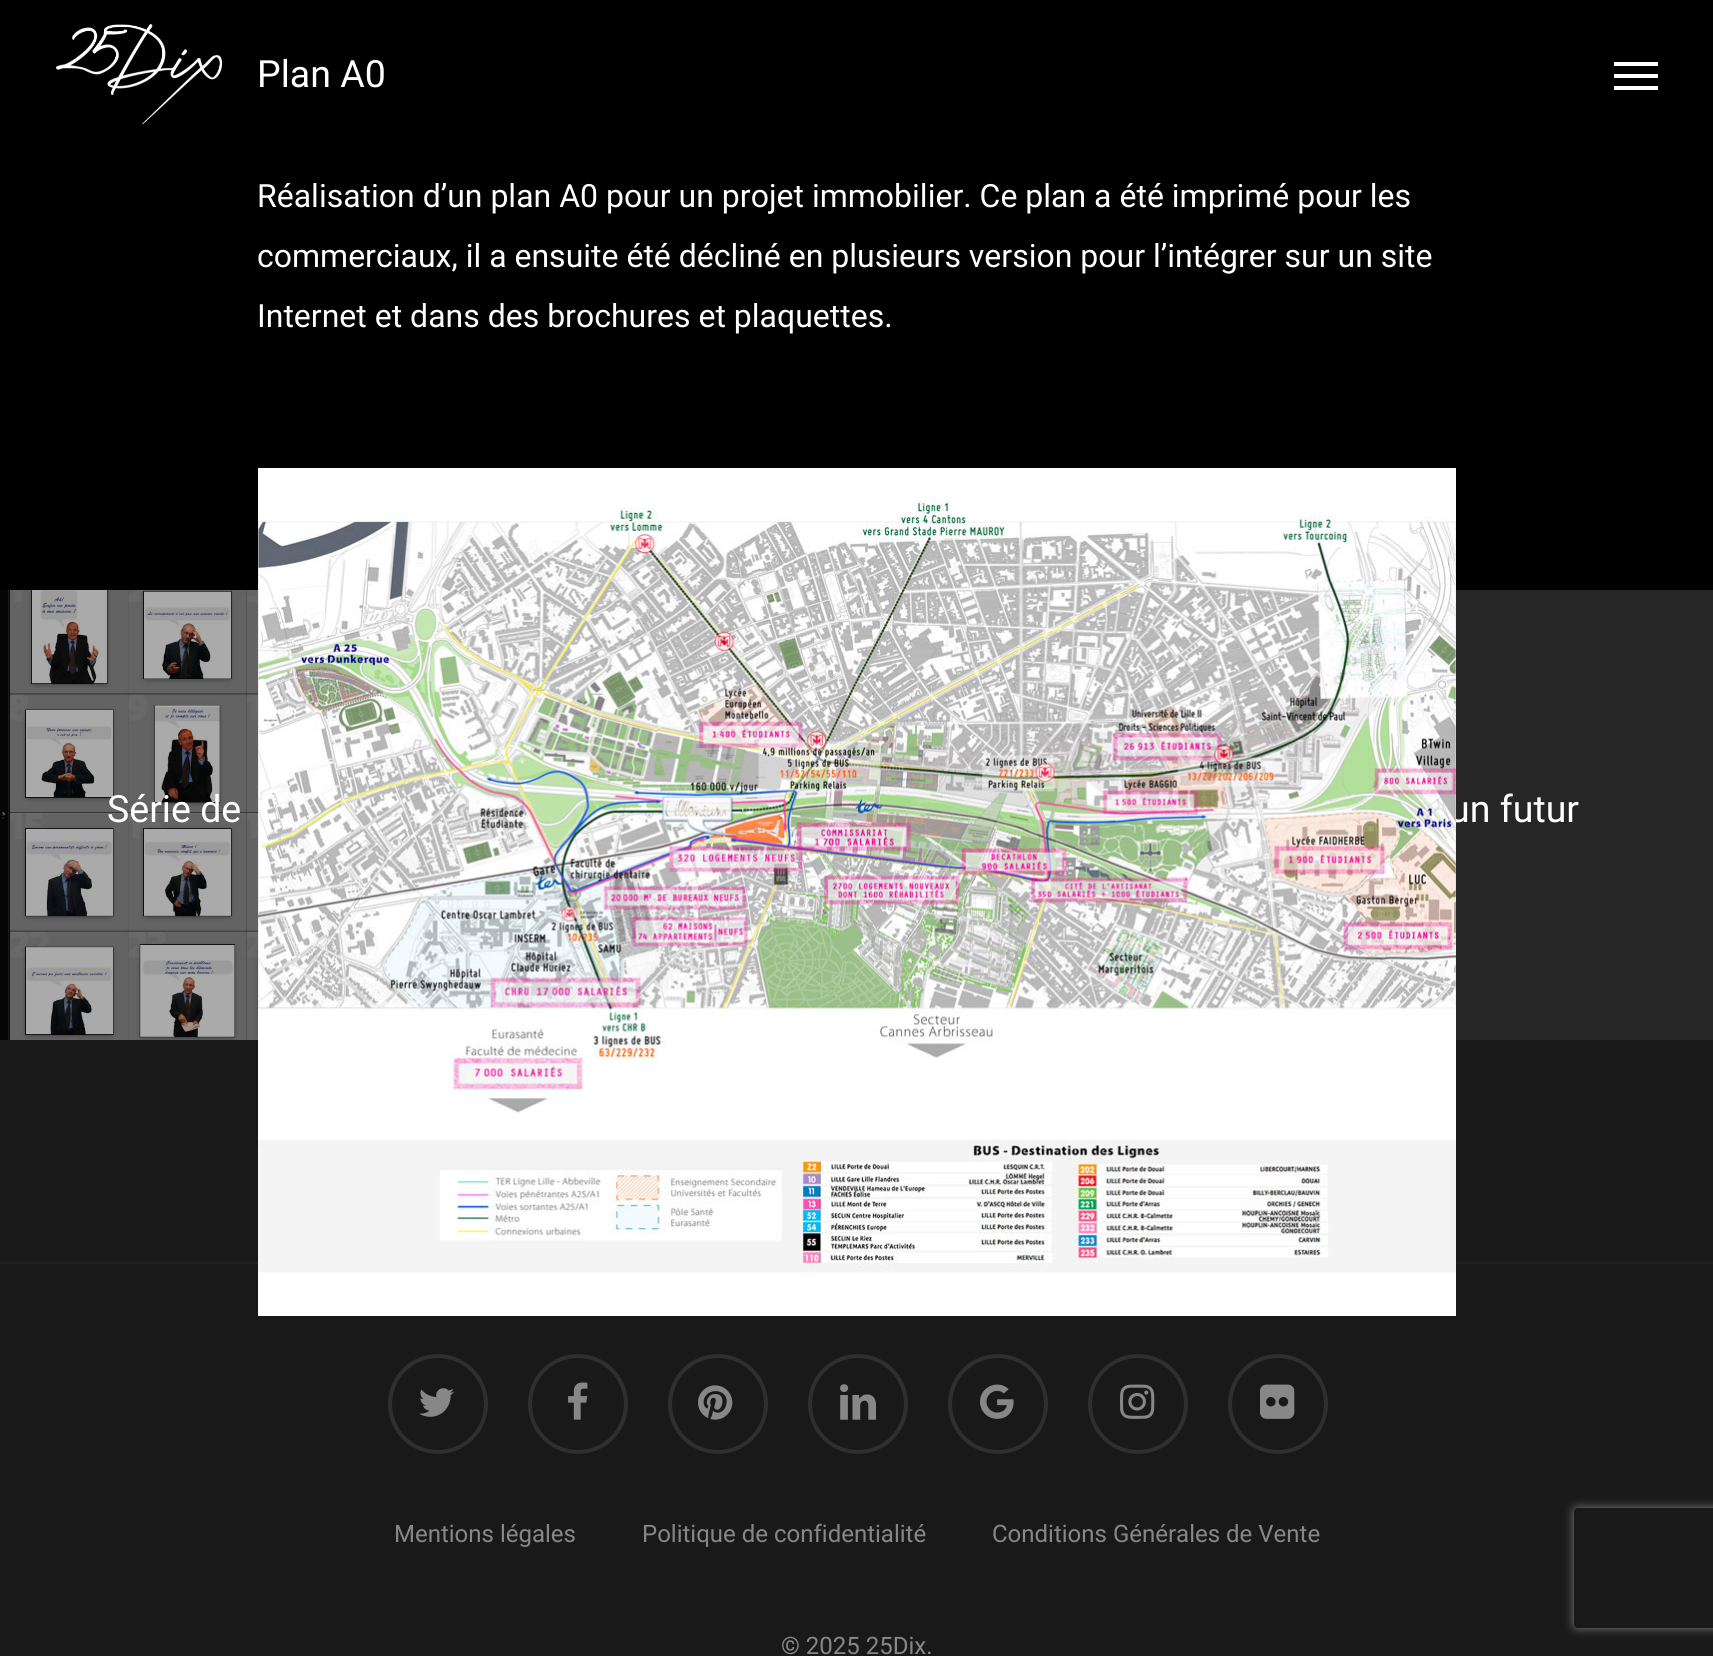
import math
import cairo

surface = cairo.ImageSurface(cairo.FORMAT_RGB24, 1713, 1656)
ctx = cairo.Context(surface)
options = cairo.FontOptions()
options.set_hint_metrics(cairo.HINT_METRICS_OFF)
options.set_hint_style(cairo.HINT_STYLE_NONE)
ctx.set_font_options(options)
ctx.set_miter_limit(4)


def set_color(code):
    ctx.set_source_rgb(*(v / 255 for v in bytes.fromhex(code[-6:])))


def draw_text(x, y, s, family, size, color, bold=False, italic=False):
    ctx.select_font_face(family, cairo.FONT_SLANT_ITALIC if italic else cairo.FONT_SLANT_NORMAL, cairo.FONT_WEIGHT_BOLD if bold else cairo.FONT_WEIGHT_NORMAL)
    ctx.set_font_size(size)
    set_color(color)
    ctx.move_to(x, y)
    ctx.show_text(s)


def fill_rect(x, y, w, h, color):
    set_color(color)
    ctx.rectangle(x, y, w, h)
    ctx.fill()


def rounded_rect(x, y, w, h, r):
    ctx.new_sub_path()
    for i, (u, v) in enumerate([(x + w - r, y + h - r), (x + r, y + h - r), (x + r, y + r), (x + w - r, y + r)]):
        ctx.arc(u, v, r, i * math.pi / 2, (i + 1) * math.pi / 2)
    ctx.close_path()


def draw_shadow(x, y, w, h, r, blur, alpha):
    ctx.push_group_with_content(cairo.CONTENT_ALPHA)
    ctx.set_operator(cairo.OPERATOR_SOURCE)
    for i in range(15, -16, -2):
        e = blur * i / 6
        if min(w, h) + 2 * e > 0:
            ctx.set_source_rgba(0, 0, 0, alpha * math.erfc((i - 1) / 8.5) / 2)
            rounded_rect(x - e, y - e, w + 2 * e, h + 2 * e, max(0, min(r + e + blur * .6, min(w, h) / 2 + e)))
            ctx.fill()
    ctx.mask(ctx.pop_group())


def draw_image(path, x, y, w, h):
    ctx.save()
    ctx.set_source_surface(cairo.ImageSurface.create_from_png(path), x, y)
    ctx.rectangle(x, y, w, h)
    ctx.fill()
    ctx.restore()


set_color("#000000")
ctx.paint()
draw_image("assets/img1.png", 56, 24, 166, 100)
fill_rect(1614, 62, 44, 4, "#ffffff")
fill_rect(1614, 86, 44, 4, "#ffffff")
fill_rect(1614, 74, 44, 4, "#ffffff")
draw_text(257, 87, "Plan A0", "Roboto", 37.5, "#ffffff")
draw_text(257, 207, "Réalisation d’un plan A0 pour un projet immobilier. Ce plan a été imprimé pour les", "Roboto", 32, "#ffffff")
draw_text(257, 267, "commerciaux, il a ensuite été décliné en plusieurs version pour l’intégrer sur un site", "Roboto", 32, "#ffffff")
draw_text(257, 327, "Internet et dans des brochures et plaquettes.", "Roboto", 32, "#ffffff")
fill_rect(1456, 590, 257, 450, "#262626")
draw_text(1449, 822, "un futur", "Roboto", 37.5, "#ffffff")
fill_rect(0, 1040, 1713, 616, "#191919")
fill_rect(0, 1262, 1713, 2, "#212121")
draw_image("assets/img2.png", 258, 468, 1198, 848)
draw_image("assets/img3.png", 0, 590, 258, 450)
draw_text(107, 822, "Série de", "Roboto", 37.5, "#ffffff")
draw_image("assets/img4.png", 419, 1388, 35, 29)
ctx.arc(438, 1404, 48, 0, 2 * math.pi)
set_color("#2f2f2f")
ctx.set_line_width(4)
ctx.stroke()
draw_image("assets/img5.png", 568, 1382, 20, 38)
ctx.arc(578, 1404, 48, 0, 2 * math.pi)
ctx.stroke()
draw_image("assets/img6.png", 698, 1385, 35, 35)
ctx.arc(718, 1404, 48, 0, 2 * math.pi)
ctx.stroke()
draw_image("assets/img7.png", 840, 1384, 36, 36)
ctx.arc(858, 1404, 48, 0, 2 * math.pi)
ctx.stroke()
draw_image("assets/img8.png", 980, 1384, 34, 35)
ctx.arc(998, 1404, 48, 0, 2 * math.pi)
ctx.stroke()
draw_image("assets/img9.png", 1120, 1384, 35, 35)
ctx.arc(1138, 1404, 48, 0, 2 * math.pi)
ctx.stroke()
draw_image("assets/img10.png", 1260, 1384, 35, 35)
ctx.arc(1278, 1404, 48, 0, 2 * math.pi)
ctx.stroke()
draw_text(394, 1542, "Mentions légales", "Roboto", 24, "#878787")
draw_text(642, 1542, "Politique de confidentialité", "Roboto", 24, "#878787")
draw_text(992, 1542, "Conditions Générales de Vente", "Roboto", 24, "#878787")
draw_text(781, 1654, "© 2025 25Dix.", "Roboto", 24, "#878787")
ctx.save()
ctx.set_fill_rule(cairo.FILL_RULE_EVEN_ODD)
ctx.new_path()
ctx.move_to(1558, 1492)
ctx.line_to(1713, 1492)
ctx.line_to(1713, 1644)
ctx.line_to(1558, 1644)
ctx.close_path()
ctx.move_to(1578, 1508)
ctx.line_to(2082, 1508)
ctx.curve_to(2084, 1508, 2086, 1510, 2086, 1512)
ctx.line_to(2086, 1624)
ctx.curve_to(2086, 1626, 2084, 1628, 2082, 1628)
ctx.line_to(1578, 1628)
ctx.curve_to(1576, 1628, 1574, 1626, 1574, 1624)
ctx.line_to(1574, 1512)
ctx.curve_to(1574, 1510, 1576, 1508, 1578, 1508)
ctx.close_path()
ctx.clip()
set_color("#808080")
draw_shadow(1574, 1508, 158, 120, 4, 5, 1)
ctx.restore()
surface.write_to_png("output.png")
